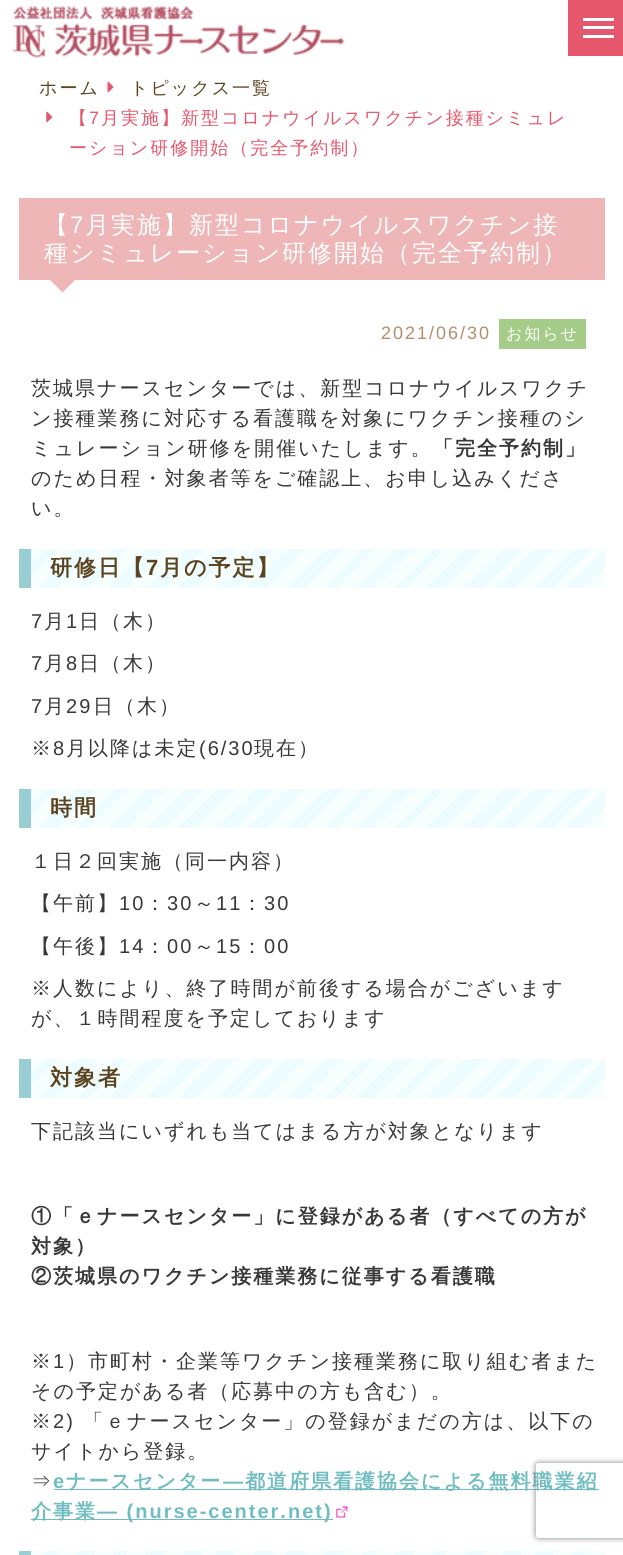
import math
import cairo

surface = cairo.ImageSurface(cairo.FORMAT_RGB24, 623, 1555)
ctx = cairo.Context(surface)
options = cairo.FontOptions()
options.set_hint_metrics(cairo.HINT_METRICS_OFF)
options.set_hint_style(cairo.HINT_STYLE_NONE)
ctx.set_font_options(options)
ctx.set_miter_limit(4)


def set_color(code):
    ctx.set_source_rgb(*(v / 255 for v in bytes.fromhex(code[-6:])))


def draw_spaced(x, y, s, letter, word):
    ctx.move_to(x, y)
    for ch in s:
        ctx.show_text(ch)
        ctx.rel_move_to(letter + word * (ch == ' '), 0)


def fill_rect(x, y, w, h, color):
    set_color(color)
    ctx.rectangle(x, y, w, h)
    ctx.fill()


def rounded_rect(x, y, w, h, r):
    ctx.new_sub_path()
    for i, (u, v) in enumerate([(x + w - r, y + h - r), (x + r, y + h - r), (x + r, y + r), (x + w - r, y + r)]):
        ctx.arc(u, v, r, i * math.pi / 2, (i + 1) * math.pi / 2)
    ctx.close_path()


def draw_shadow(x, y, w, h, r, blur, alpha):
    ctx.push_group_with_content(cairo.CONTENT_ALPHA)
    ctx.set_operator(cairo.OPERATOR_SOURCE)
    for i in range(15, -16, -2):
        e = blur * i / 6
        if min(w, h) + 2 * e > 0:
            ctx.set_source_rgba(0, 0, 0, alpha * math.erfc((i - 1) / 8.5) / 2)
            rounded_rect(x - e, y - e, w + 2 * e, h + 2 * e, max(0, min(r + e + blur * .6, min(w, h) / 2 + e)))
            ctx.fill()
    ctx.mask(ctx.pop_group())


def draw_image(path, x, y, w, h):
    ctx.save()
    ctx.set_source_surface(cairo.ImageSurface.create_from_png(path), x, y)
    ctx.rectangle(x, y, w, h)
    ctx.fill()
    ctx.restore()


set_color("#ffffff")
ctx.paint()
draw_image("assets/img1.png", 12, 6, 332, 52)
fill_rect(568, 0, 55, 56, "#e5576c")
fill_rect(583, 26, 31, 3, "#ffffff")
fill_rect(583, 18, 31, 3, "#ffffff")
fill_rect(583, 35, 31, 3, "#ffffff")
ctx.select_font_face("WenQuanYi Zen Hei Medium")
ctx.set_font_size(18)
set_color("#5b441f")
draw_spaced(39, 94, "ホーム", 2, 0)
draw_image("assets/img2.png", 107, 81, 7, 12)
draw_spaced(130, 94, "トピックス一覧", 2, 0)
draw_image("assets/img3.png", 46, 111, 7, 12)
set_color("#e5576c")
draw_spaced(69, 124, "【", 2, 0)
ctx.select_font_face("Liberation Sans")
draw_spaced(89, 124, "7", 2, 0)
ctx.select_font_face("WenQuanYi Zen Hei Medium")
draw_spaced(101, 124, "月実施】新型コロナウイルスワクチン接種シミュレ", 2, 0)
draw_spaced(69, 154, "ーション研修開始（完全予約制）", 2, 0)
fill_rect(19, 198, 586, 82, "#eeb6b7")
ctx.set_font_size(24)
set_color("#ffffff")
draw_spaced(44, 233, "【", 2, 0)
ctx.select_font_face("Liberation Sans")
draw_spaced(70, 233, "7", 2, 0)
ctx.select_font_face("WenQuanYi Zen Hei Medium")
draw_spaced(85, 233, "月実施】新型コロナウイルスワクチン接", 2, 0)
draw_spaced(44, 261, "種シミュレーション研修開始（完全予約制）", 2, 0)
set_color("#eeb6b7")
ctx.new_path()
ctx.move_to(50, 280)
ctx.line_to(75, 280)
ctx.line_to(62.5, 292.5)
ctx.close_path()
ctx.fill()
ctx.select_font_face("Liberation Sans")
ctx.set_font_size(18)
set_color("#b28e6d")
draw_spaced(381, 339, "2021/06/30", 2, 0)
fill_rect(499, 319, 87, 30, "#a5cd89")
ctx.select_font_face("WenQuanYi Zen Hei Medium")
ctx.set_font_size(16)
set_color("#ffffff")
draw_spaced(506, 339, "お知らせ", 2, 0)
ctx.set_font_size(20)
set_color("#383838")
draw_spaced(31, 395, "茨城県ナースセンターでは、新型コロナウイルスワクチ", 2, 0)
draw_spaced(31, 425, "ン接種業務に対応する看護職を対象にワクチン接種のシ", 2, 0)
draw_spaced(31, 455, "ミュレーション研修を開催いたします。", 2, 0)
ctx.select_font_face("WenQuanYi Zen Hei", cairo.FONT_SLANT_NORMAL, cairo.FONT_WEIGHT_BOLD)
draw_spaced(433, 455, "「完全予約制」", 2, 0)
ctx.select_font_face("WenQuanYi Zen Hei Medium")
draw_spaced(31, 485, "のため日程・対象者等をご確認上、お申し込みくださ", 2, 0)
draw_spaced(31, 515, "い。", 2, 0)
gradient = cairo.LinearGradient(471, 721, 153, 403)
gradient.add_color_stop_rgba(0, 0.969, 1, 0.996, 1)
gradient.add_color_stop_rgba(0.03, 0.969, 1, 0.996, 1)
gradient.add_color_stop_rgba(0.03, 0.929, 0.988, 1, 1)
gradient.add_color_stop_rgba(0.06, 0.929, 0.988, 1, 1)
gradient.add_color_stop_rgba(0.06, 0.969, 1, 0.996, 1)
gradient.add_color_stop_rgba(0.08, 0.969, 1, 0.996, 1)
gradient.add_color_stop_rgba(0.08, 0.929, 0.988, 1, 1)
gradient.add_color_stop_rgba(0.11, 0.929, 0.988, 1, 1)
gradient.add_color_stop_rgba(0.11, 0.969, 1, 0.996, 1)
gradient.add_color_stop_rgba(0.14, 0.969, 1, 0.996, 1)
gradient.add_color_stop_rgba(0.14, 0.929, 0.988, 1, 1)
gradient.add_color_stop_rgba(0.17, 0.929, 0.988, 1, 1)
gradient.add_color_stop_rgba(0.17, 0.969, 1, 0.996, 1)
gradient.add_color_stop_rgba(0.19, 0.969, 1, 0.996, 1)
gradient.add_color_stop_rgba(0.19, 0.929, 0.988, 1, 1)
gradient.add_color_stop_rgba(0.22, 0.929, 0.988, 1, 1)
gradient.add_color_stop_rgba(0.22, 0.969, 1, 0.996, 1)
gradient.add_color_stop_rgba(0.25, 0.969, 1, 0.996, 1)
gradient.add_color_stop_rgba(0.25, 0.929, 0.988, 1, 1)
gradient.add_color_stop_rgba(0.28, 0.929, 0.988, 1, 1)
gradient.add_color_stop_rgba(0.28, 0.969, 1, 0.996, 1)
gradient.add_color_stop_rgba(0.31, 0.969, 1, 0.996, 1)
gradient.add_color_stop_rgba(0.31, 0.929, 0.988, 1, 1)
gradient.add_color_stop_rgba(0.33, 0.929, 0.988, 1, 1)
gradient.add_color_stop_rgba(0.33, 0.969, 1, 0.996, 1)
gradient.add_color_stop_rgba(0.36, 0.969, 1, 0.996, 1)
gradient.add_color_stop_rgba(0.36, 0.929, 0.988, 1, 1)
gradient.add_color_stop_rgba(0.39, 0.929, 0.988, 1, 1)
gradient.add_color_stop_rgba(0.39, 0.969, 1, 0.996, 1)
gradient.add_color_stop_rgba(0.42, 0.969, 1, 0.996, 1)
gradient.add_color_stop_rgba(0.42, 0.929, 0.988, 1, 1)
gradient.add_color_stop_rgba(0.44, 0.929, 0.988, 1, 1)
gradient.add_color_stop_rgba(0.44, 0.969, 1, 0.996, 1)
gradient.add_color_stop_rgba(0.47, 0.969, 1, 0.996, 1)
gradient.add_color_stop_rgba(0.47, 0.929, 0.988, 1, 1)
gradient.add_color_stop_rgba(0.5, 0.929, 0.988, 1, 1)
gradient.add_color_stop_rgba(0.5, 0.969, 1, 0.996, 1)
gradient.add_color_stop_rgba(0.53, 0.969, 1, 0.996, 1)
gradient.add_color_stop_rgba(0.53, 0.929, 0.988, 1, 1)
gradient.add_color_stop_rgba(0.56, 0.929, 0.988, 1, 1)
gradient.add_color_stop_rgba(0.56, 0.969, 1, 0.996, 1)
gradient.add_color_stop_rgba(0.58, 0.969, 1, 0.996, 1)
gradient.add_color_stop_rgba(0.58, 0.929, 0.988, 1, 1)
gradient.add_color_stop_rgba(0.61, 0.929, 0.988, 1, 1)
gradient.add_color_stop_rgba(0.61, 0.969, 1, 0.996, 1)
gradient.add_color_stop_rgba(0.64, 0.969, 1, 0.996, 1)
gradient.add_color_stop_rgba(0.64, 0.929, 0.988, 1, 1)
gradient.add_color_stop_rgba(0.67, 0.929, 0.988, 1, 1)
gradient.add_color_stop_rgba(0.67, 0.969, 1, 0.996, 1)
gradient.add_color_stop_rgba(0.69, 0.969, 1, 0.996, 1)
gradient.add_color_stop_rgba(0.69, 0.929, 0.988, 1, 1)
gradient.add_color_stop_rgba(0.72, 0.929, 0.988, 1, 1)
gradient.add_color_stop_rgba(0.72, 0.969, 1, 0.996, 1)
gradient.add_color_stop_rgba(0.75, 0.969, 1, 0.996, 1)
gradient.add_color_stop_rgba(0.75, 0.929, 0.988, 1, 1)
gradient.add_color_stop_rgba(0.78, 0.929, 0.988, 1, 1)
gradient.add_color_stop_rgba(0.78, 0.969, 1, 0.996, 1)
gradient.add_color_stop_rgba(0.81, 0.969, 1, 0.996, 1)
gradient.add_color_stop_rgba(0.81, 0.929, 0.988, 1, 1)
gradient.add_color_stop_rgba(0.83, 0.929, 0.988, 1, 1)
gradient.add_color_stop_rgba(0.83, 0.969, 1, 0.996, 1)
gradient.add_color_stop_rgba(0.86, 0.969, 1, 0.996, 1)
gradient.add_color_stop_rgba(0.86, 0.929, 0.988, 1, 1)
gradient.add_color_stop_rgba(0.89, 0.929, 0.988, 1, 1)
gradient.add_color_stop_rgba(0.89, 0.969, 1, 0.996, 1)
gradient.add_color_stop_rgba(0.92, 0.969, 1, 0.996, 1)
gradient.add_color_stop_rgba(0.92, 0.929, 0.988, 1, 1)
gradient.add_color_stop_rgba(0.94, 0.929, 0.988, 1, 1)
gradient.add_color_stop_rgba(0.94, 0.969, 1, 0.996, 1)
gradient.add_color_stop_rgba(0.97, 0.969, 1, 0.996, 1)
gradient.add_color_stop_rgba(0.97, 0.929, 0.988, 1, 1)
gradient.add_color_stop_rgba(1, 0.929, 0.988, 1, 1)
ctx.set_source(gradient)
ctx.rectangle(31, 549, 574, 39)
ctx.fill()
fill_rect(19, 549, 12, 39, "#99ced4")
ctx.select_font_face("WenQuanYi Zen Hei", cairo.FONT_SLANT_NORMAL, cairo.FONT_WEIGHT_BOLD)
ctx.set_font_size(22)
set_color("#5b441f")
draw_spaced(50, 575, "研修日【", 2, 0)
ctx.select_font_face("Liberation Sans", cairo.FONT_SLANT_NORMAL, cairo.FONT_WEIGHT_BOLD)
draw_spaced(146, 575, "7", 2, 0)
ctx.select_font_face("WenQuanYi Zen Hei", cairo.FONT_SLANT_NORMAL, cairo.FONT_WEIGHT_BOLD)
draw_spaced(160, 575, "月の予定】", 2, 0)
ctx.select_font_face("Liberation Sans")
ctx.set_font_size(20)
set_color("#383838")
draw_spaced(31, 628, "7", 2, 0)
ctx.select_font_face("WenQuanYi Zen Hei Medium")
draw_spaced(44, 628, "月", 2, 0)
ctx.select_font_face("Liberation Sans")
draw_spaced(66, 628, "1", 2, 0)
ctx.select_font_face("WenQuanYi Zen Hei Medium")
draw_spaced(79, 628, "日（木）", 2, 0)
ctx.select_font_face("Liberation Sans")
draw_spaced(31, 670, "7", 2, 0)
ctx.select_font_face("WenQuanYi Zen Hei Medium")
draw_spaced(44, 670, "月", 2, 0)
ctx.select_font_face("Liberation Sans")
draw_spaced(66, 670, "8", 2, 0)
ctx.select_font_face("WenQuanYi Zen Hei Medium")
draw_spaced(79, 670, "日（木）", 2, 0)
ctx.select_font_face("Liberation Sans")
draw_spaced(31, 713, "7", 2, 0)
ctx.select_font_face("WenQuanYi Zen Hei Medium")
draw_spaced(44, 713, "月", 2, 0)
ctx.select_font_face("Liberation Sans")
draw_spaced(66, 713, "29", 2, 0)
ctx.select_font_face("WenQuanYi Zen Hei Medium")
draw_spaced(93, 713, "日（木）", 2, 0)
draw_spaced(31, 755, "※", 2, 0)
ctx.select_font_face("Liberation Sans")
draw_spaced(53, 755, "8", 2, 0)
ctx.select_font_face("WenQuanYi Zen Hei Medium")
draw_spaced(66, 755, "月以降は未定", 2, 0)
ctx.select_font_face("Liberation Sans")
draw_spaced(199, 755, "(6/30", 2, 0)
ctx.select_font_face("WenQuanYi Zen Hei Medium")
draw_spaced(254, 755, "現在）", 2, 0)
gradient = cairo.LinearGradient(471, 961, 153, 643)
gradient.add_color_stop_rgba(0, 0.969, 1, 0.996, 1)
gradient.add_color_stop_rgba(0.03, 0.969, 1, 0.996, 1)
gradient.add_color_stop_rgba(0.03, 0.929, 0.988, 1, 1)
gradient.add_color_stop_rgba(0.06, 0.929, 0.988, 1, 1)
gradient.add_color_stop_rgba(0.06, 0.969, 1, 0.996, 1)
gradient.add_color_stop_rgba(0.08, 0.969, 1, 0.996, 1)
gradient.add_color_stop_rgba(0.08, 0.929, 0.988, 1, 1)
gradient.add_color_stop_rgba(0.11, 0.929, 0.988, 1, 1)
gradient.add_color_stop_rgba(0.11, 0.969, 1, 0.996, 1)
gradient.add_color_stop_rgba(0.14, 0.969, 1, 0.996, 1)
gradient.add_color_stop_rgba(0.14, 0.929, 0.988, 1, 1)
gradient.add_color_stop_rgba(0.17, 0.929, 0.988, 1, 1)
gradient.add_color_stop_rgba(0.17, 0.969, 1, 0.996, 1)
gradient.add_color_stop_rgba(0.19, 0.969, 1, 0.996, 1)
gradient.add_color_stop_rgba(0.19, 0.929, 0.988, 1, 1)
gradient.add_color_stop_rgba(0.22, 0.929, 0.988, 1, 1)
gradient.add_color_stop_rgba(0.22, 0.969, 1, 0.996, 1)
gradient.add_color_stop_rgba(0.25, 0.969, 1, 0.996, 1)
gradient.add_color_stop_rgba(0.25, 0.929, 0.988, 1, 1)
gradient.add_color_stop_rgba(0.28, 0.929, 0.988, 1, 1)
gradient.add_color_stop_rgba(0.28, 0.969, 1, 0.996, 1)
gradient.add_color_stop_rgba(0.31, 0.969, 1, 0.996, 1)
gradient.add_color_stop_rgba(0.31, 0.929, 0.988, 1, 1)
gradient.add_color_stop_rgba(0.33, 0.929, 0.988, 1, 1)
gradient.add_color_stop_rgba(0.33, 0.969, 1, 0.996, 1)
gradient.add_color_stop_rgba(0.36, 0.969, 1, 0.996, 1)
gradient.add_color_stop_rgba(0.36, 0.929, 0.988, 1, 1)
gradient.add_color_stop_rgba(0.39, 0.929, 0.988, 1, 1)
gradient.add_color_stop_rgba(0.39, 0.969, 1, 0.996, 1)
gradient.add_color_stop_rgba(0.42, 0.969, 1, 0.996, 1)
gradient.add_color_stop_rgba(0.42, 0.929, 0.988, 1, 1)
gradient.add_color_stop_rgba(0.44, 0.929, 0.988, 1, 1)
gradient.add_color_stop_rgba(0.44, 0.969, 1, 0.996, 1)
gradient.add_color_stop_rgba(0.47, 0.969, 1, 0.996, 1)
gradient.add_color_stop_rgba(0.47, 0.929, 0.988, 1, 1)
gradient.add_color_stop_rgba(0.5, 0.929, 0.988, 1, 1)
gradient.add_color_stop_rgba(0.5, 0.969, 1, 0.996, 1)
gradient.add_color_stop_rgba(0.53, 0.969, 1, 0.996, 1)
gradient.add_color_stop_rgba(0.53, 0.929, 0.988, 1, 1)
gradient.add_color_stop_rgba(0.56, 0.929, 0.988, 1, 1)
gradient.add_color_stop_rgba(0.56, 0.969, 1, 0.996, 1)
gradient.add_color_stop_rgba(0.58, 0.969, 1, 0.996, 1)
gradient.add_color_stop_rgba(0.58, 0.929, 0.988, 1, 1)
gradient.add_color_stop_rgba(0.61, 0.929, 0.988, 1, 1)
gradient.add_color_stop_rgba(0.61, 0.969, 1, 0.996, 1)
gradient.add_color_stop_rgba(0.64, 0.969, 1, 0.996, 1)
gradient.add_color_stop_rgba(0.64, 0.929, 0.988, 1, 1)
gradient.add_color_stop_rgba(0.67, 0.929, 0.988, 1, 1)
gradient.add_color_stop_rgba(0.67, 0.969, 1, 0.996, 1)
gradient.add_color_stop_rgba(0.69, 0.969, 1, 0.996, 1)
gradient.add_color_stop_rgba(0.69, 0.929, 0.988, 1, 1)
gradient.add_color_stop_rgba(0.72, 0.929, 0.988, 1, 1)
gradient.add_color_stop_rgba(0.72, 0.969, 1, 0.996, 1)
gradient.add_color_stop_rgba(0.75, 0.969, 1, 0.996, 1)
gradient.add_color_stop_rgba(0.75, 0.929, 0.988, 1, 1)
gradient.add_color_stop_rgba(0.78, 0.929, 0.988, 1, 1)
gradient.add_color_stop_rgba(0.78, 0.969, 1, 0.996, 1)
gradient.add_color_stop_rgba(0.81, 0.969, 1, 0.996, 1)
gradient.add_color_stop_rgba(0.81, 0.929, 0.988, 1, 1)
gradient.add_color_stop_rgba(0.83, 0.929, 0.988, 1, 1)
gradient.add_color_stop_rgba(0.83, 0.969, 1, 0.996, 1)
gradient.add_color_stop_rgba(0.86, 0.969, 1, 0.996, 1)
gradient.add_color_stop_rgba(0.86, 0.929, 0.988, 1, 1)
gradient.add_color_stop_rgba(0.89, 0.929, 0.988, 1, 1)
gradient.add_color_stop_rgba(0.89, 0.969, 1, 0.996, 1)
gradient.add_color_stop_rgba(0.92, 0.969, 1, 0.996, 1)
gradient.add_color_stop_rgba(0.92, 0.929, 0.988, 1, 1)
gradient.add_color_stop_rgba(0.94, 0.929, 0.988, 1, 1)
gradient.add_color_stop_rgba(0.94, 0.969, 1, 0.996, 1)
gradient.add_color_stop_rgba(0.97, 0.969, 1, 0.996, 1)
gradient.add_color_stop_rgba(0.97, 0.929, 0.988, 1, 1)
gradient.add_color_stop_rgba(1, 0.929, 0.988, 1, 1)
ctx.set_source(gradient)
ctx.rectangle(31, 789, 574, 39)
ctx.fill()
fill_rect(19, 789, 12, 39, "#99ced4")
ctx.select_font_face("WenQuanYi Zen Hei", cairo.FONT_SLANT_NORMAL, cairo.FONT_WEIGHT_BOLD)
ctx.set_font_size(22)
set_color("#5b441f")
draw_spaced(50, 815, "時間", 2, 0)
ctx.select_font_face("WenQuanYi Zen Hei Medium")
ctx.set_font_size(20)
set_color("#383838")
draw_spaced(31, 868, "１日２回実施（同一内容）", 2, 0)
draw_spaced(31, 910, "【午前】", 2, 0)
ctx.select_font_face("Liberation Sans")
draw_spaced(119, 910, "10", 2, 0)
ctx.select_font_face("WenQuanYi Zen Hei Medium")
draw_spaced(145, 910, "：", 2, 0)
ctx.select_font_face("Liberation Sans")
draw_spaced(167, 910, "30", 2, 0)
ctx.select_font_face("WenQuanYi Zen Hei Medium")
draw_spaced(194, 910, "～", 2, 0)
ctx.select_font_face("Liberation Sans")
draw_spaced(216, 910, "11", 2, 0)
ctx.select_font_face("WenQuanYi Zen Hei Medium")
draw_spaced(242, 910, "：", 2, 0)
ctx.select_font_face("Liberation Sans")
draw_spaced(264, 910, "30", 2, 0)
ctx.select_font_face("WenQuanYi Zen Hei Medium")
draw_spaced(31, 953, "【午後】", 2, 0)
ctx.select_font_face("Liberation Sans")
draw_spaced(119, 953, "14", 2, 0)
ctx.select_font_face("WenQuanYi Zen Hei Medium")
draw_spaced(145, 953, "：", 2, 0)
ctx.select_font_face("Liberation Sans")
draw_spaced(167, 953, "00", 2, 0)
ctx.select_font_face("WenQuanYi Zen Hei Medium")
draw_spaced(194, 953, "～", 2, 0)
ctx.select_font_face("Liberation Sans")
draw_spaced(216, 953, "15", 2, 0)
ctx.select_font_face("WenQuanYi Zen Hei Medium")
draw_spaced(242, 953, "：", 2, 0)
ctx.select_font_face("Liberation Sans")
draw_spaced(264, 953, "00", 2, 0)
ctx.select_font_face("WenQuanYi Zen Hei Medium")
draw_spaced(31, 995, "※人数により、終了時間が前後する場合がございます", 2, 0)
draw_spaced(31, 1025, "が、１時間程度を予定しております", 2, 0)
gradient = cairo.LinearGradient(471, 1231, 153, 913)
gradient.add_color_stop_rgba(0, 0.969, 1, 0.996, 1)
gradient.add_color_stop_rgba(0.03, 0.969, 1, 0.996, 1)
gradient.add_color_stop_rgba(0.03, 0.929, 0.988, 1, 1)
gradient.add_color_stop_rgba(0.06, 0.929, 0.988, 1, 1)
gradient.add_color_stop_rgba(0.06, 0.969, 1, 0.996, 1)
gradient.add_color_stop_rgba(0.08, 0.969, 1, 0.996, 1)
gradient.add_color_stop_rgba(0.08, 0.929, 0.988, 1, 1)
gradient.add_color_stop_rgba(0.11, 0.929, 0.988, 1, 1)
gradient.add_color_stop_rgba(0.11, 0.969, 1, 0.996, 1)
gradient.add_color_stop_rgba(0.14, 0.969, 1, 0.996, 1)
gradient.add_color_stop_rgba(0.14, 0.929, 0.988, 1, 1)
gradient.add_color_stop_rgba(0.17, 0.929, 0.988, 1, 1)
gradient.add_color_stop_rgba(0.17, 0.969, 1, 0.996, 1)
gradient.add_color_stop_rgba(0.19, 0.969, 1, 0.996, 1)
gradient.add_color_stop_rgba(0.19, 0.929, 0.988, 1, 1)
gradient.add_color_stop_rgba(0.22, 0.929, 0.988, 1, 1)
gradient.add_color_stop_rgba(0.22, 0.969, 1, 0.996, 1)
gradient.add_color_stop_rgba(0.25, 0.969, 1, 0.996, 1)
gradient.add_color_stop_rgba(0.25, 0.929, 0.988, 1, 1)
gradient.add_color_stop_rgba(0.28, 0.929, 0.988, 1, 1)
gradient.add_color_stop_rgba(0.28, 0.969, 1, 0.996, 1)
gradient.add_color_stop_rgba(0.31, 0.969, 1, 0.996, 1)
gradient.add_color_stop_rgba(0.31, 0.929, 0.988, 1, 1)
gradient.add_color_stop_rgba(0.33, 0.929, 0.988, 1, 1)
gradient.add_color_stop_rgba(0.33, 0.969, 1, 0.996, 1)
gradient.add_color_stop_rgba(0.36, 0.969, 1, 0.996, 1)
gradient.add_color_stop_rgba(0.36, 0.929, 0.988, 1, 1)
gradient.add_color_stop_rgba(0.39, 0.929, 0.988, 1, 1)
gradient.add_color_stop_rgba(0.39, 0.969, 1, 0.996, 1)
gradient.add_color_stop_rgba(0.42, 0.969, 1, 0.996, 1)
gradient.add_color_stop_rgba(0.42, 0.929, 0.988, 1, 1)
gradient.add_color_stop_rgba(0.44, 0.929, 0.988, 1, 1)
gradient.add_color_stop_rgba(0.44, 0.969, 1, 0.996, 1)
gradient.add_color_stop_rgba(0.47, 0.969, 1, 0.996, 1)
gradient.add_color_stop_rgba(0.47, 0.929, 0.988, 1, 1)
gradient.add_color_stop_rgba(0.5, 0.929, 0.988, 1, 1)
gradient.add_color_stop_rgba(0.5, 0.969, 1, 0.996, 1)
gradient.add_color_stop_rgba(0.53, 0.969, 1, 0.996, 1)
gradient.add_color_stop_rgba(0.53, 0.929, 0.988, 1, 1)
gradient.add_color_stop_rgba(0.56, 0.929, 0.988, 1, 1)
gradient.add_color_stop_rgba(0.56, 0.969, 1, 0.996, 1)
gradient.add_color_stop_rgba(0.58, 0.969, 1, 0.996, 1)
gradient.add_color_stop_rgba(0.58, 0.929, 0.988, 1, 1)
gradient.add_color_stop_rgba(0.61, 0.929, 0.988, 1, 1)
gradient.add_color_stop_rgba(0.61, 0.969, 1, 0.996, 1)
gradient.add_color_stop_rgba(0.64, 0.969, 1, 0.996, 1)
gradient.add_color_stop_rgba(0.64, 0.929, 0.988, 1, 1)
gradient.add_color_stop_rgba(0.67, 0.929, 0.988, 1, 1)
gradient.add_color_stop_rgba(0.67, 0.969, 1, 0.996, 1)
gradient.add_color_stop_rgba(0.69, 0.969, 1, 0.996, 1)
gradient.add_color_stop_rgba(0.69, 0.929, 0.988, 1, 1)
gradient.add_color_stop_rgba(0.72, 0.929, 0.988, 1, 1)
gradient.add_color_stop_rgba(0.72, 0.969, 1, 0.996, 1)
gradient.add_color_stop_rgba(0.75, 0.969, 1, 0.996, 1)
gradient.add_color_stop_rgba(0.75, 0.929, 0.988, 1, 1)
gradient.add_color_stop_rgba(0.78, 0.929, 0.988, 1, 1)
gradient.add_color_stop_rgba(0.78, 0.969, 1, 0.996, 1)
gradient.add_color_stop_rgba(0.81, 0.969, 1, 0.996, 1)
gradient.add_color_stop_rgba(0.81, 0.929, 0.988, 1, 1)
gradient.add_color_stop_rgba(0.83, 0.929, 0.988, 1, 1)
gradient.add_color_stop_rgba(0.83, 0.969, 1, 0.996, 1)
gradient.add_color_stop_rgba(0.86, 0.969, 1, 0.996, 1)
gradient.add_color_stop_rgba(0.86, 0.929, 0.988, 1, 1)
gradient.add_color_stop_rgba(0.89, 0.929, 0.988, 1, 1)
gradient.add_color_stop_rgba(0.89, 0.969, 1, 0.996, 1)
gradient.add_color_stop_rgba(0.92, 0.969, 1, 0.996, 1)
gradient.add_color_stop_rgba(0.92, 0.929, 0.988, 1, 1)
gradient.add_color_stop_rgba(0.94, 0.929, 0.988, 1, 1)
gradient.add_color_stop_rgba(0.94, 0.969, 1, 0.996, 1)
gradient.add_color_stop_rgba(0.97, 0.969, 1, 0.996, 1)
gradient.add_color_stop_rgba(0.97, 0.929, 0.988, 1, 1)
gradient.add_color_stop_rgba(1, 0.929, 0.988, 1, 1)
ctx.set_source(gradient)
ctx.rectangle(31, 1059, 574, 39)
ctx.fill()
fill_rect(19, 1059, 12, 39, "#99ced4")
ctx.select_font_face("WenQuanYi Zen Hei", cairo.FONT_SLANT_NORMAL, cairo.FONT_WEIGHT_BOLD)
ctx.set_font_size(22)
set_color("#5b441f")
draw_spaced(50, 1085, "対象者", 2, 0)
ctx.select_font_face("WenQuanYi Zen Hei Medium")
ctx.set_font_size(20)
set_color("#383838")
draw_spaced(31, 1138, "下記該当にいずれも当てはまる方が対象となります", 2, 0)
ctx.select_font_face("WenQuanYi Zen Hei", cairo.FONT_SLANT_NORMAL, cairo.FONT_WEIGHT_BOLD)
draw_spaced(31, 1223, "①「ｅナースセンター」に登録がある者（すべての方が", 2, 0)
draw_spaced(31, 1253, "対象）", 2, 0)
draw_spaced(31, 1283, "②茨城県のワクチン接種業務に従事する看護職", 2, 0)
ctx.select_font_face("WenQuanYi Zen Hei Medium")
draw_spaced(31, 1368, "※", 2, 0)
ctx.select_font_face("Liberation Sans")
draw_spaced(53, 1368, "1", 2, 0)
ctx.select_font_face("WenQuanYi Zen Hei Medium")
draw_spaced(66, 1368, "）市町村・企業等ワクチン接種業務に取り組む者また", 2, 0)
draw_spaced(31, 1398, "その予定がある者（応募中の方も含む）。", 2, 0)
draw_spaced(31, 1428, "※", 2, 0)
ctx.select_font_face("Liberation Sans")
draw_spaced(53, 1428, "2)", 2, 0)
ctx.select_font_face("WenQuanYi Zen Hei Medium")
draw_spaced(83, 1428, "「ｅナースセンター」の登録がまだの方は、以下の", 2, 0)
draw_spaced(31, 1458, "サイトから登録。", 2, 0)
ctx.select_font_face("Liberation Sans", cairo.FONT_SLANT_NORMAL, cairo.FONT_WEIGHT_BOLD)
set_color("#70bdc1")
draw_spaced(53, 1488, "e", 2, 0)
fill_rect(54, 1489, 545, 1, "#70bdc1")
ctx.select_font_face("WenQuanYi Zen Hei", cairo.FONT_SLANT_NORMAL, cairo.FONT_WEIGHT_BOLD)
draw_spaced(66, 1488, "ナースセンター", 2, 0)
ctx.select_font_face("Liberation Sans", cairo.FONT_SLANT_NORMAL, cairo.FONT_WEIGHT_BOLD)
draw_spaced(223, 1488, "―", 2, 0)
ctx.select_font_face("WenQuanYi Zen Hei", cairo.FONT_SLANT_NORMAL, cairo.FONT_WEIGHT_BOLD)
draw_spaced(245, 1488, "都道府県看護協会による無料職業紹", 2, 0)
fill_rect(31, 1519, 302, 1, "#70bdc1")
draw_spaced(31, 1518, "介事業", 2, 0)
ctx.select_font_face("Liberation Sans", cairo.FONT_SLANT_NORMAL, cairo.FONT_WEIGHT_BOLD)
draw_spaced(97, 1518, "― (nurse-center.net)", 2, 0)
draw_image("assets/img4.png", 336, 1506, 12, 12)
ctx.select_font_face("WenQuanYi Zen Hei Medium")
set_color("#383838")
draw_spaced(31, 1488, "⇒", 2, 0)
gradient = cairo.LinearGradient(472, 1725, 153, 1406)
gradient.add_color_stop_rgba(0, 0.969, 1, 0.996, 1)
gradient.add_color_stop_rgba(0.03, 0.969, 1, 0.996, 1)
gradient.add_color_stop_rgba(0.03, 0.929, 0.988, 1, 1)
gradient.add_color_stop_rgba(0.06, 0.929, 0.988, 1, 1)
gradient.add_color_stop_rgba(0.06, 0.969, 1, 0.996, 1)
gradient.add_color_stop_rgba(0.08, 0.969, 1, 0.996, 1)
gradient.add_color_stop_rgba(0.08, 0.929, 0.988, 1, 1)
gradient.add_color_stop_rgba(0.11, 0.929, 0.988, 1, 1)
gradient.add_color_stop_rgba(0.11, 0.969, 1, 0.996, 1)
gradient.add_color_stop_rgba(0.14, 0.969, 1, 0.996, 1)
gradient.add_color_stop_rgba(0.14, 0.929, 0.988, 1, 1)
gradient.add_color_stop_rgba(0.17, 0.929, 0.988, 1, 1)
gradient.add_color_stop_rgba(0.17, 0.969, 1, 0.996, 1)
gradient.add_color_stop_rgba(0.19, 0.969, 1, 0.996, 1)
gradient.add_color_stop_rgba(0.19, 0.929, 0.988, 1, 1)
gradient.add_color_stop_rgba(0.22, 0.929, 0.988, 1, 1)
gradient.add_color_stop_rgba(0.22, 0.969, 1, 0.996, 1)
gradient.add_color_stop_rgba(0.25, 0.969, 1, 0.996, 1)
gradient.add_color_stop_rgba(0.25, 0.929, 0.988, 1, 1)
gradient.add_color_stop_rgba(0.28, 0.929, 0.988, 1, 1)
gradient.add_color_stop_rgba(0.28, 0.969, 1, 0.996, 1)
gradient.add_color_stop_rgba(0.31, 0.969, 1, 0.996, 1)
gradient.add_color_stop_rgba(0.31, 0.929, 0.988, 1, 1)
gradient.add_color_stop_rgba(0.33, 0.929, 0.988, 1, 1)
gradient.add_color_stop_rgba(0.33, 0.969, 1, 0.996, 1)
gradient.add_color_stop_rgba(0.36, 0.969, 1, 0.996, 1)
gradient.add_color_stop_rgba(0.36, 0.929, 0.988, 1, 1)
gradient.add_color_stop_rgba(0.39, 0.929, 0.988, 1, 1)
gradient.add_color_stop_rgba(0.39, 0.969, 1, 0.996, 1)
gradient.add_color_stop_rgba(0.42, 0.969, 1, 0.996, 1)
gradient.add_color_stop_rgba(0.42, 0.929, 0.988, 1, 1)
gradient.add_color_stop_rgba(0.44, 0.929, 0.988, 1, 1)
gradient.add_color_stop_rgba(0.44, 0.969, 1, 0.996, 1)
gradient.add_color_stop_rgba(0.47, 0.969, 1, 0.996, 1)
gradient.add_color_stop_rgba(0.47, 0.929, 0.988, 1, 1)
gradient.add_color_stop_rgba(0.5, 0.929, 0.988, 1, 1)
gradient.add_color_stop_rgba(0.5, 0.969, 1, 0.996, 1)
gradient.add_color_stop_rgba(0.53, 0.969, 1, 0.996, 1)
gradient.add_color_stop_rgba(0.53, 0.929, 0.988, 1, 1)
gradient.add_color_stop_rgba(0.56, 0.929, 0.988, 1, 1)
gradient.add_color_stop_rgba(0.56, 0.969, 1, 0.996, 1)
gradient.add_color_stop_rgba(0.58, 0.969, 1, 0.996, 1)
gradient.add_color_stop_rgba(0.58, 0.929, 0.988, 1, 1)
gradient.add_color_stop_rgba(0.61, 0.929, 0.988, 1, 1)
gradient.add_color_stop_rgba(0.61, 0.969, 1, 0.996, 1)
gradient.add_color_stop_rgba(0.64, 0.969, 1, 0.996, 1)
gradient.add_color_stop_rgba(0.64, 0.929, 0.988, 1, 1)
gradient.add_color_stop_rgba(0.67, 0.929, 0.988, 1, 1)
gradient.add_color_stop_rgba(0.67, 0.969, 1, 0.996, 1)
gradient.add_color_stop_rgba(0.69, 0.969, 1, 0.996, 1)
gradient.add_color_stop_rgba(0.69, 0.929, 0.988, 1, 1)
gradient.add_color_stop_rgba(0.72, 0.929, 0.988, 1, 1)
gradient.add_color_stop_rgba(0.72, 0.969, 1, 0.996, 1)
gradient.add_color_stop_rgba(0.75, 0.969, 1, 0.996, 1)
gradient.add_color_stop_rgba(0.75, 0.929, 0.988, 1, 1)
gradient.add_color_stop_rgba(0.78, 0.929, 0.988, 1, 1)
gradient.add_color_stop_rgba(0.78, 0.969, 1, 0.996, 1)
gradient.add_color_stop_rgba(0.81, 0.969, 1, 0.996, 1)
gradient.add_color_stop_rgba(0.81, 0.929, 0.988, 1, 1)
gradient.add_color_stop_rgba(0.83, 0.929, 0.988, 1, 1)
gradient.add_color_stop_rgba(0.83, 0.969, 1, 0.996, 1)
gradient.add_color_stop_rgba(0.86, 0.969, 1, 0.996, 1)
gradient.add_color_stop_rgba(0.86, 0.929, 0.988, 1, 1)
gradient.add_color_stop_rgba(0.89, 0.929, 0.988, 1, 1)
gradient.add_color_stop_rgba(0.89, 0.969, 1, 0.996, 1)
gradient.add_color_stop_rgba(0.92, 0.969, 1, 0.996, 1)
gradient.add_color_stop_rgba(0.92, 0.929, 0.988, 1, 1)
gradient.add_color_stop_rgba(0.94, 0.929, 0.988, 1, 1)
gradient.add_color_stop_rgba(0.94, 0.969, 1, 0.996, 1)
gradient.add_color_stop_rgba(0.97, 0.969, 1, 0.996, 1)
gradient.add_color_stop_rgba(0.97, 0.929, 0.988, 1, 1)
gradient.add_color_stop_rgba(1, 0.929, 0.988, 1, 1)
ctx.set_source(gradient)
ctx.rectangle(31, 1551, 574, 4)
ctx.fill()
fill_rect(19, 1551, 12, 4, "#99ced4")
ctx.save()
ctx.set_fill_rule(cairo.FILL_RULE_EVEN_ODD)
ctx.new_path()
ctx.move_to(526, 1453)
ctx.line_to(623, 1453)
ctx.line_to(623, 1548)
ctx.line_to(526, 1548)
ctx.close_path()
ctx.move_to(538.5, 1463)
ctx.line_to(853.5, 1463)
ctx.curve_to(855, 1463, 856, 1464, 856, 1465.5)
ctx.line_to(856, 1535.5)
ctx.curve_to(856, 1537, 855, 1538, 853.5, 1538)
ctx.line_to(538.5, 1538)
ctx.curve_to(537, 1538, 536, 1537, 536, 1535.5)
ctx.line_to(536, 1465.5)
ctx.curve_to(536, 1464, 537, 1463, 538.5, 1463)
ctx.close_path()
ctx.clip()
set_color("#808080")
draw_shadow(536, 1463, 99, 75, 2.5, 3, 1)
ctx.restore()
surface.write_to_png("output.png")
